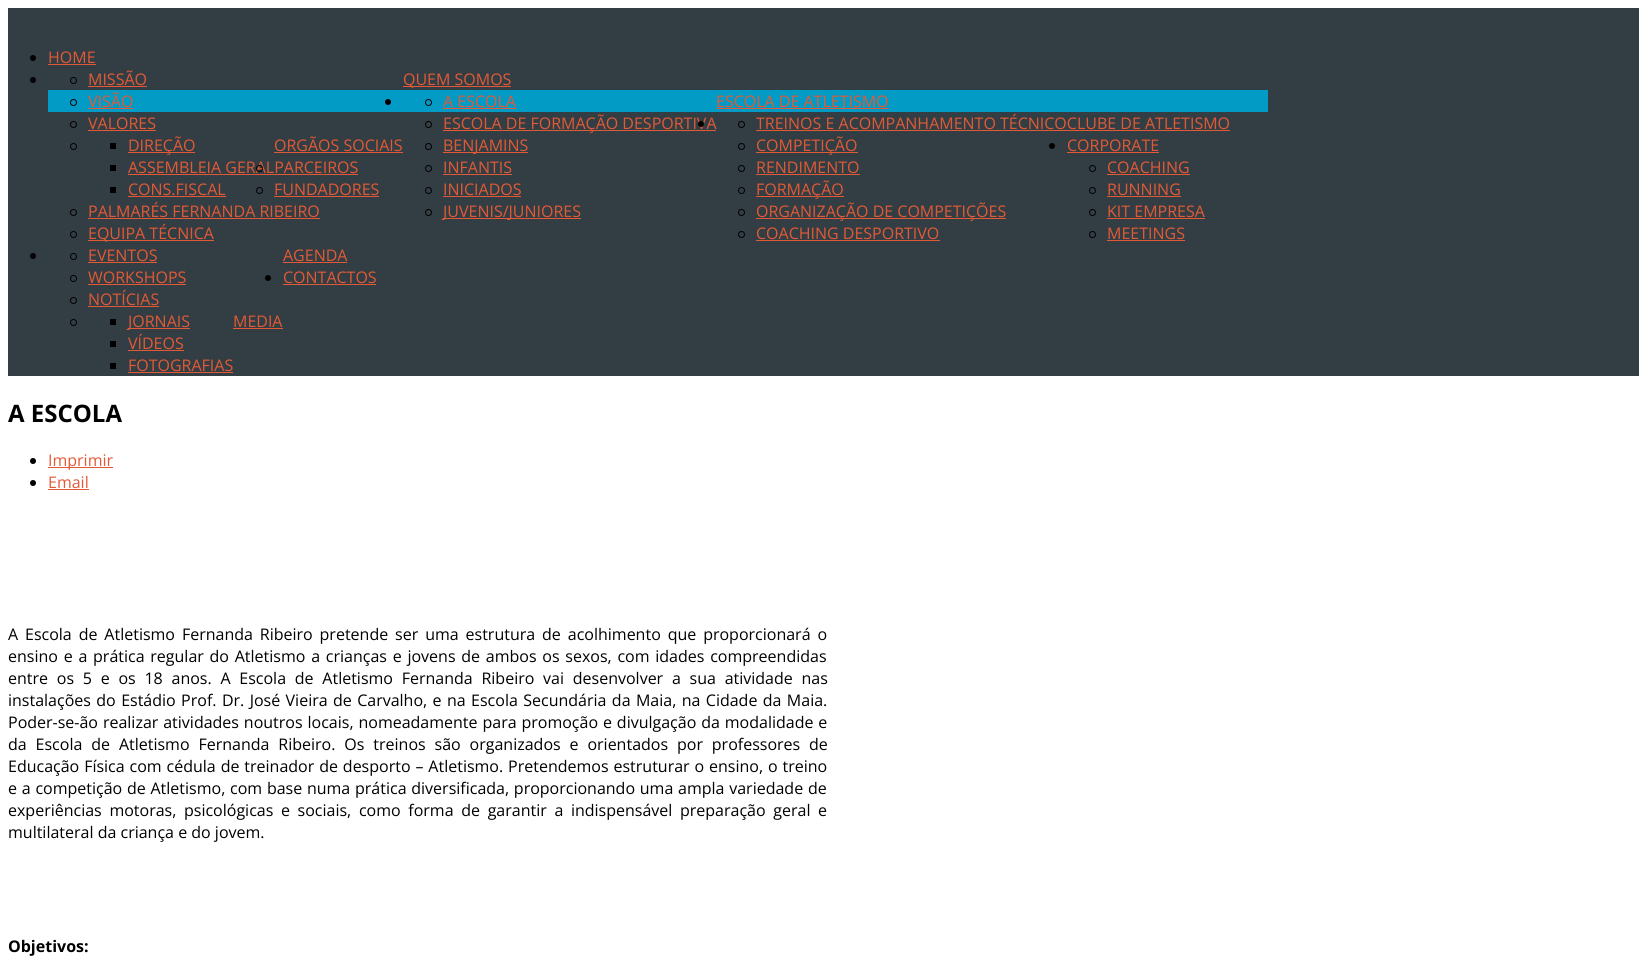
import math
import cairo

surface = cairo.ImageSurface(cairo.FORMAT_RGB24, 1647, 975)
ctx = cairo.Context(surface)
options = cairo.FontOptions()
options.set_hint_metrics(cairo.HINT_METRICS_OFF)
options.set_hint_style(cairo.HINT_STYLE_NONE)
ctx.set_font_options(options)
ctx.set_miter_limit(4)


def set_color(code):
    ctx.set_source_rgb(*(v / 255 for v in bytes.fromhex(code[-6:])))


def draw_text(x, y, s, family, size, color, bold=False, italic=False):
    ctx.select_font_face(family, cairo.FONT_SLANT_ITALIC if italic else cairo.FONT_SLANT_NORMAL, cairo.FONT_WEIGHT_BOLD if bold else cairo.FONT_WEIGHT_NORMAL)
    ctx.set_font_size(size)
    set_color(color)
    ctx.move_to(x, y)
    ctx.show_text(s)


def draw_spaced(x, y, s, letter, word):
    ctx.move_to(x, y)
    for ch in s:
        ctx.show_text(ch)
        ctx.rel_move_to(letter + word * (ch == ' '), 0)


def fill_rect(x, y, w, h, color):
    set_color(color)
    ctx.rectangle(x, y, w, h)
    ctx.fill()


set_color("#ffffff")
ctx.paint()
fill_rect(8, 8, 1631, 368, "#333d44")
set_color("#000000")
ctx.arc(33, 58, 3, 0, 2 * math.pi)
ctx.fill()
draw_text(48, 63, "HOME", "Open Sans", 16, "#e25a35")
fill_rect(48, 64, 48, 1, "#e25a35")
set_color("#000000")
ctx.new_path()
ctx.arc(33, 80, 3, 0, 2 * math.pi)
ctx.fill()
ctx.arc(73.5, 80.5, 3, 0, 2 * math.pi)
ctx.set_line_width(1)
ctx.stroke()
draw_text(88, 85, "MISSÃO", "Open Sans", 16, "#e25a35")
fill_rect(88, 86, 59, 1, "#e25a35")
fill_rect(48, 90, 1220, 22, "#019bc5")
ctx.new_path()
ctx.arc(73.5, 102.5, 3, 0, 2 * math.pi)
set_color("#000000")
ctx.stroke()
draw_text(88, 107, "VISÃO", "Open Sans", 16, "#e25a35")
fill_rect(88, 108, 45, 1, "#e25a35")
ctx.new_path()
ctx.arc(73.5, 124.5, 3, 0, 2 * math.pi)
set_color("#000000")
ctx.stroke()
draw_text(88, 129, "VALORES", "Open Sans", 16, "#e25a35")
fill_rect(88, 130, 68, 1, "#e25a35")
fill_rect(110, 143, 6, 6, "#000000")
fill_rect(128, 152, 67, 1, "#e25a35")
draw_text(128, 151, "DIREÇÃO", "Open Sans", 16, "#e25a35")
fill_rect(110, 165, 6, 6, "#000000")
draw_text(128, 173, "ASSEMBLEIA GERALPARCEIROS", "Open Sans", 16, "#e25a35")
fill_rect(128, 174, 230, 1, "#e25a35")
fill_rect(110, 187, 6, 6, "#000000")
draw_text(128, 195, "CONS.FISCAL", "Open Sans", 16, "#e25a35")
fill_rect(128, 196, 98, 1, "#e25a35")
ctx.new_path()
ctx.arc(73.5, 146.5, 3, 0, 2 * math.pi)
set_color("#000000")
ctx.stroke()
draw_text(274, 151, "ORGÃOS SOCIAIS", "Open Sans", 16, "#e25a35")
fill_rect(274, 152, 129, 1, "#e25a35")
ctx.new_path()
ctx.arc(259.5, 168.5, 3, 0, 2 * math.pi)
set_color("#000000")
ctx.stroke()
ctx.arc(259.5, 190.5, 3, 0, 2 * math.pi)
ctx.stroke()
draw_text(274, 195, "FUNDADORES", "Open Sans", 16, "#e25a35")
fill_rect(274, 196, 105, 1, "#e25a35")
ctx.new_path()
ctx.arc(73.5, 212.5, 3, 0, 2 * math.pi)
set_color("#000000")
ctx.stroke()
draw_text(88, 217, "PALMARÉS FERNANDA RIBEIRO", "Open Sans", 16, "#e25a35")
fill_rect(88, 218, 232, 1, "#e25a35")
ctx.new_path()
ctx.arc(73.5, 234.5, 3, 0, 2 * math.pi)
set_color("#000000")
ctx.stroke()
fill_rect(88, 240, 126, 1, "#e25a35")
draw_text(88, 239, "EQUIPA TÉCNICA", "Open Sans", 16, "#e25a35")
fill_rect(403, 86, 108, 1, "#e25a35")
draw_text(403, 85, "QUEM SOMOS", "Open Sans", 16, "#e25a35")
set_color("#000000")
ctx.new_path()
ctx.arc(388, 102, 3, 0, 2 * math.pi)
ctx.fill()
ctx.arc(428.5, 102.5, 3, 0, 2 * math.pi)
ctx.stroke()
draw_text(443, 107, "A ESCOLA", "Open Sans", 16, "#e25a35")
fill_rect(443, 108, 73, 1, "#e25a35")
ctx.new_path()
ctx.arc(428.5, 124.5, 3, 0, 2 * math.pi)
set_color("#000000")
ctx.stroke()
fill_rect(443, 130, 273, 1, "#e25a35")
draw_text(443, 129, "ESCOLA DE FORMAÇÃO DESPORTIVA", "Open Sans", 16, "#e25a35")
ctx.new_path()
ctx.arc(428.5, 146.5, 3, 0, 2 * math.pi)
set_color("#000000")
ctx.stroke()
fill_rect(443, 152, 85, 1, "#e25a35")
draw_text(443, 151, "BENJAMINS", "Open Sans", 16, "#e25a35")
ctx.new_path()
ctx.arc(428.5, 168.5, 3, 0, 2 * math.pi)
set_color("#000000")
ctx.stroke()
draw_text(443, 173, "INFANTIS", "Open Sans", 16, "#e25a35")
fill_rect(443, 174, 69, 1, "#e25a35")
ctx.new_path()
ctx.arc(428.5, 190.5, 3, 0, 2 * math.pi)
set_color("#000000")
ctx.stroke()
draw_text(443, 195, "INICIADOS", "Open Sans", 16, "#e25a35")
fill_rect(443, 196, 78, 1, "#e25a35")
ctx.new_path()
ctx.arc(428.5, 212.5, 3, 0, 2 * math.pi)
set_color("#000000")
ctx.stroke()
fill_rect(443, 218, 138, 1, "#e25a35")
draw_text(443, 217, "JUVENIS/JUNIORES", "Open Sans", 16, "#e25a35")
draw_text(716, 107, "ESCOLA DE ATLETISMO", "Open Sans", 16, "#e25a35")
fill_rect(716, 108, 173, 1, "#e25a35")
set_color("#000000")
ctx.new_path()
ctx.arc(701, 124, 3, 0, 2 * math.pi)
ctx.fill()
ctx.arc(741.5, 124.5, 3, 0, 2 * math.pi)
ctx.stroke()
draw_text(756, 129, "TREINOS E ACOMPANHAMENTO TÉCNICOCLUBE DE ATLETISMO", "Open Sans", 16, "#e25a35")
fill_rect(756, 130, 474, 1, "#e25a35")
ctx.new_path()
ctx.arc(741.5, 146.5, 3, 0, 2 * math.pi)
set_color("#000000")
ctx.stroke()
fill_rect(756, 152, 102, 1, "#e25a35")
draw_text(756, 151, "COMPETIÇÃO", "Open Sans", 16, "#e25a35")
ctx.new_path()
ctx.arc(741.5, 168.5, 3, 0, 2 * math.pi)
set_color("#000000")
ctx.stroke()
draw_text(756, 173, "RENDIMENTO", "Open Sans", 16, "#e25a35")
fill_rect(756, 174, 104, 1, "#e25a35")
ctx.new_path()
ctx.arc(741.5, 190.5, 3, 0, 2 * math.pi)
set_color("#000000")
ctx.stroke()
fill_rect(756, 196, 88, 1, "#e25a35")
draw_text(756, 195, "FORMAÇÃO", "Open Sans", 16, "#e25a35")
ctx.new_path()
ctx.arc(741.5, 212.5, 3, 0, 2 * math.pi)
set_color("#000000")
ctx.stroke()
fill_rect(756, 218, 250, 1, "#e25a35")
draw_text(756, 217, "ORGANIZAÇÃO DE COMPETIÇÕES", "Open Sans", 16, "#e25a35")
ctx.new_path()
ctx.arc(741.5, 234.5, 3, 0, 2 * math.pi)
set_color("#000000")
ctx.stroke()
draw_text(756, 239, "COACHING DESPORTIVO", "Open Sans", 16, "#e25a35")
fill_rect(756, 240, 184, 1, "#e25a35")
set_color("#000000")
ctx.new_path()
ctx.arc(1052, 146, 3, 0, 2 * math.pi)
ctx.fill()
draw_text(1067, 151, "CORPORATE", "Open Sans", 16, "#e25a35")
fill_rect(1067, 152, 92, 1, "#e25a35")
ctx.new_path()
ctx.arc(1092.5, 168.5, 3, 0, 2 * math.pi)
set_color("#000000")
ctx.stroke()
draw_text(1107, 173, "COACHING", "Open Sans", 16, "#e25a35")
fill_rect(1107, 174, 83, 1, "#e25a35")
ctx.new_path()
ctx.arc(1092.5, 190.5, 3, 0, 2 * math.pi)
set_color("#000000")
ctx.stroke()
draw_text(1107, 195, "RUNNING", "Open Sans", 16, "#e25a35")
fill_rect(1107, 196, 74, 1, "#e25a35")
ctx.new_path()
ctx.arc(1092.5, 212.5, 3, 0, 2 * math.pi)
set_color("#000000")
ctx.stroke()
draw_text(1107, 217, "KIT EMPRESA", "Open Sans", 16, "#e25a35")
fill_rect(1107, 218, 98, 1, "#e25a35")
ctx.new_path()
ctx.arc(1092.5, 234.5, 3, 0, 2 * math.pi)
set_color("#000000")
ctx.stroke()
draw_text(1107, 239, "MEETINGS", "Open Sans", 16, "#e25a35")
fill_rect(1107, 240, 78, 1, "#e25a35")
set_color("#000000")
ctx.new_path()
ctx.arc(33, 256, 3, 0, 2 * math.pi)
ctx.fill()
ctx.arc(73.5, 256.5, 3, 0, 2 * math.pi)
ctx.stroke()
draw_text(88, 261, "EVENTOS", "Open Sans", 16, "#e25a35")
fill_rect(88, 262, 69, 1, "#e25a35")
ctx.new_path()
ctx.arc(73.5, 278.5, 3, 0, 2 * math.pi)
set_color("#000000")
ctx.stroke()
draw_text(88, 283, "WORKSHOPS", "Open Sans", 16, "#e25a35")
fill_rect(88, 284, 98, 1, "#e25a35")
ctx.new_path()
ctx.arc(73.5, 300.5, 3, 0, 2 * math.pi)
set_color("#000000")
ctx.stroke()
draw_text(88, 305, "NOTÍCIAS", "Open Sans", 16, "#e25a35")
fill_rect(88, 306, 71, 1, "#e25a35")
ctx.new_path()
ctx.arc(73.5, 322.5, 3, 0, 2 * math.pi)
set_color("#000000")
ctx.stroke()
fill_rect(110, 319, 6, 6, "#000000")
fill_rect(128, 328, 62, 1, "#e25a35")
draw_text(128, 327, "JORNAIS", "Open Sans", 16, "#e25a35")
fill_rect(110, 341, 6, 6, "#000000")
draw_text(128, 349, "VÍDEOS", "Open Sans", 16, "#e25a35")
fill_rect(128, 350, 56, 1, "#e25a35")
fill_rect(110, 363, 6, 6, "#000000")
draw_text(128, 371, "FOTOGRAFIAS", "Open Sans", 16, "#e25a35")
fill_rect(128, 372, 105, 1, "#e25a35")
draw_text(233, 327, "MEDIA", "Open Sans", 16, "#e25a35")
fill_rect(233, 328, 50, 1, "#e25a35")
draw_text(283, 261, "AGENDA", "Open Sans", 16, "#e25a35")
fill_rect(283, 262, 64, 1, "#e25a35")
set_color("#000000")
ctx.new_path()
ctx.arc(268, 278, 3, 0, 2 * math.pi)
ctx.fill()
draw_text(283, 283, "CONTACTOS", "Open Sans", 16, "#e25a35")
fill_rect(283, 284, 93, 1, "#e25a35")
draw_text(8, 422, "A ESCOLA", "Open Sans", 24, "#000000", bold=True)
ctx.new_path()
ctx.arc(33, 461, 3, 0, 2 * math.pi)
ctx.fill()
fill_rect(48, 467, 65, 1, "#e25a35")
draw_text(48, 466, "Imprimir", "Open Sans", 16, "#e25a35")
set_color("#000000")
ctx.new_path()
ctx.arc(33, 483, 3, 0, 2 * math.pi)
ctx.fill()
draw_text(48, 488, "Email", "Open Sans", 16, "#e25a35")
fill_rect(48, 489, 41, 1, "#e25a35")
set_color("#000000")
draw_spaced(8, 640, "A Escola de Atletismo Fernanda Ribeiro pretende ser uma estrutura de acolhimento que proporcionará o", 0, 2.75)
draw_spaced(8, 662, "ensino e a prática regular do Atletismo a crianças e jovens de ambos os sexos, com idades compreendidas", 0, 1.6)
draw_spaced(8, 684, "entre os 5 e os 18 anos. A Escola de Atletismo Fernanda Ribeiro vai desenvolver a sua atividade nas", 0, 4.6)
draw_spaced(8, 706, "instalações do Estádio Prof. Dr. José Vieira de Carvalho, e na Escola Secundária da Maia, na Cidade da Maia.", 0, 1.25)
draw_spaced(8, 728, "Poder-se-ão realizar atividades noutros locais, nomeadamente para promoção e divulgação da modalidade e", 0, 0.75)
draw_spaced(8, 750, "da Escola de Atletismo Fernanda Ribeiro. Os treinos são organizados e orientados por professores de", 0, 4.75)
draw_spaced(8, 772, "Educação Física com cédula de treinador de desporto – Atletismo. Pretendemos estruturar o ensino, o treino", 0, 0.75)
draw_spaced(8, 794, "e a competição de Atletismo, com base numa prática diversificada, proporcionando uma ampla variedade de", 0, 0.6)
draw_spaced(8, 816, "experiências motoras, psicológicas e sociais, como forma de garantir a indispensável preparação geral e", 0, 3.5)
draw_text(8, 838, "multilateral da criança e do jovem.", "Open Sans", 16, "#000000")
draw_text(8, 952, "Objetivos:", "Open Sans", 16, "#000000", bold=True)
surface.write_to_png("output.png")
